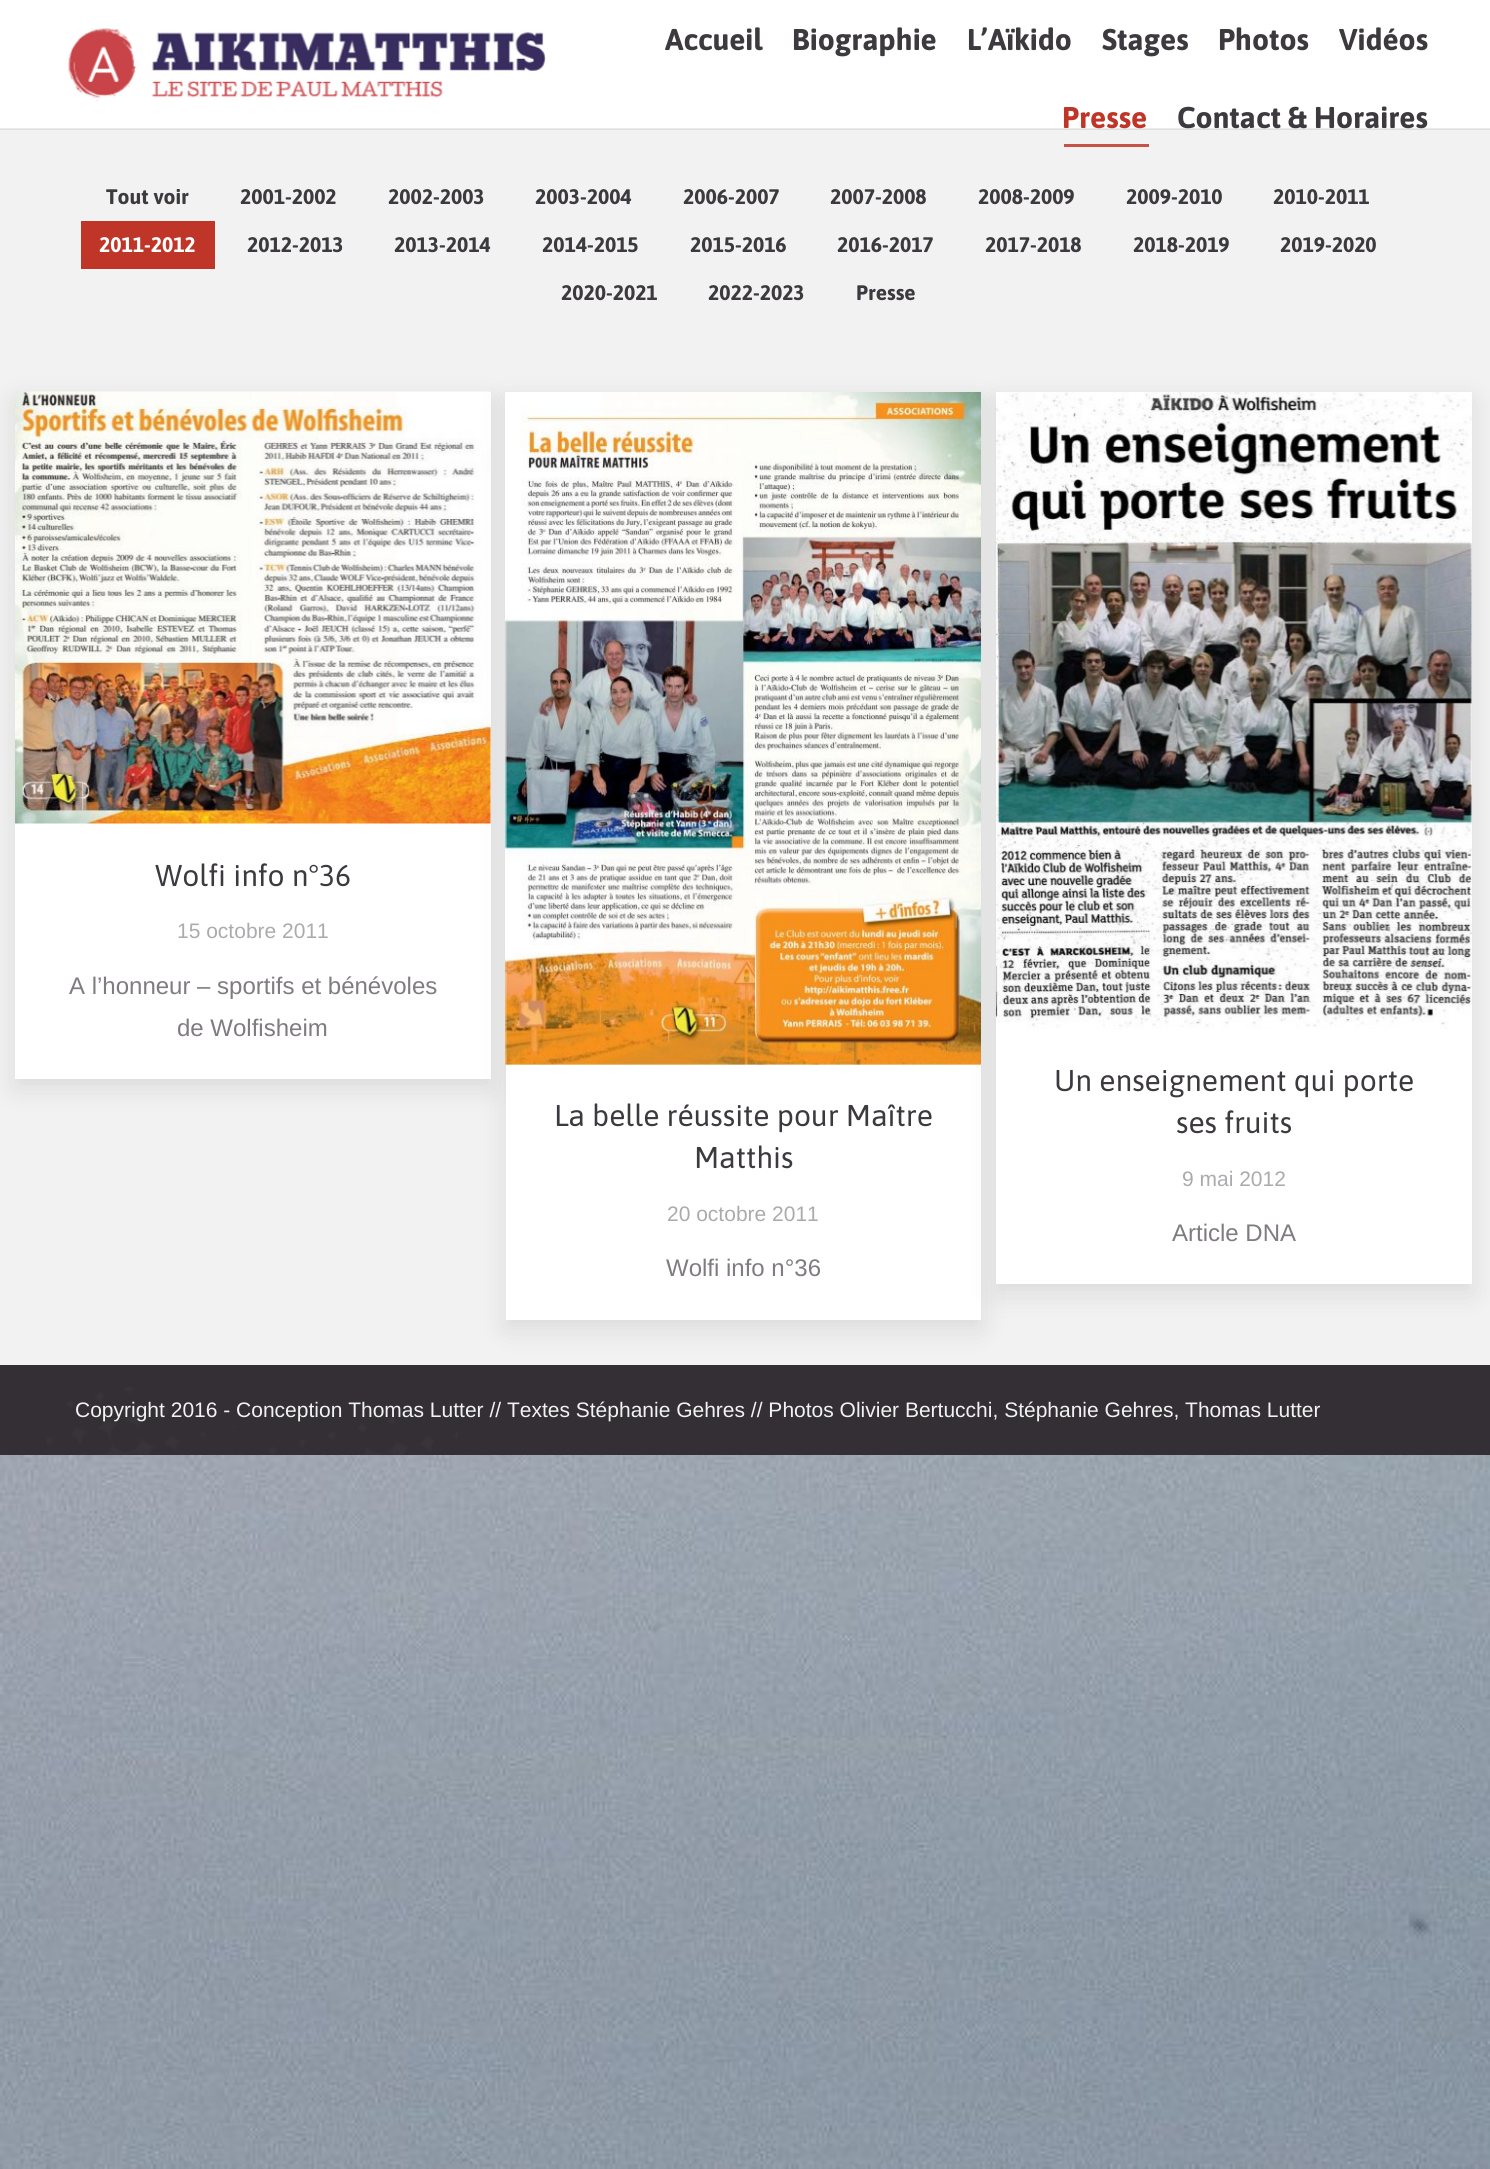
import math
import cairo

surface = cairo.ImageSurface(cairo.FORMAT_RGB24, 1490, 2169)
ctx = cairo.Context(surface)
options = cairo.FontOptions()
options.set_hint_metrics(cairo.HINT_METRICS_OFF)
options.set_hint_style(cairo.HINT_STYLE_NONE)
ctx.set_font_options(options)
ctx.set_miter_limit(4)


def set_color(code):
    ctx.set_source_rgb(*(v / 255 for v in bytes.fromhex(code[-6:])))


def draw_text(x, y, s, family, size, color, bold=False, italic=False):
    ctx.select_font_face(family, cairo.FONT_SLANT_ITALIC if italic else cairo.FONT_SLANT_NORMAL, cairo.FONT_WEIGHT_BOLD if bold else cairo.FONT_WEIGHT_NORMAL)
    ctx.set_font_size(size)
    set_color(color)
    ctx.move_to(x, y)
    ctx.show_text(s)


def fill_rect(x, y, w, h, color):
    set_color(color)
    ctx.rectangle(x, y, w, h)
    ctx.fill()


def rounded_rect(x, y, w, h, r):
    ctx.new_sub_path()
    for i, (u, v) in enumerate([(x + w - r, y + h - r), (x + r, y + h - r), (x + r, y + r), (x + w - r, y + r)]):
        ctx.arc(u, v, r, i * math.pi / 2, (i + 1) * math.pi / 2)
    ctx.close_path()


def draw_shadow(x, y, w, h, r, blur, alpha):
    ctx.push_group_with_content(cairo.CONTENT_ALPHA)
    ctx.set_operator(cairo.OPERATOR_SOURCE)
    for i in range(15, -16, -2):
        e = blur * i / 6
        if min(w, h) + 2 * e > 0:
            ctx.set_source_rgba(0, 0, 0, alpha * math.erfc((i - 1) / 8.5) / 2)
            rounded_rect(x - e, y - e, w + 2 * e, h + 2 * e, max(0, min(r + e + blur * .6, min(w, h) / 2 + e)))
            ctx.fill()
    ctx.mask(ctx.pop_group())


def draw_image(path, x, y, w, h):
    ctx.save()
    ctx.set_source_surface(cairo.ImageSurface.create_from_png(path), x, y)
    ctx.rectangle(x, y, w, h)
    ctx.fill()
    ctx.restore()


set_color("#ffffff")
ctx.paint()
draw_image("assets/img1.png", 0, 1455, 1490, 714)
fill_rect(0, 129, 1490, 1236, "#f2f2f2")
ctx.set_source_rgba(0, 0, 0, 0.08)
ctx.rectangle(0, 128, 1490, 2)
ctx.fill()
draw_image("assets/img2.png", 67, 28, 479, 74)
draw_text(665, 50, "Accueil", "Asap", 30, "#3d3a3f", bold=True)
draw_text(792, 50, "Biographie", "Asap", 30, "#3d3a3f", bold=True)
draw_text(967, 50, "L’Aïkido", "Asap", 30, "#3d3a3f", bold=True)
draw_text(1102, 50, "Stages", "Asap", 30, "#3d3a3f", bold=True)
draw_text(1218, 50, "Photos", "Asap", 30, "#3d3a3f", bold=True)
draw_text(1339, 50, "Vidéos", "Asap", 30, "#3d3a3f", bold=True)
draw_text(1062, 128, "Presse", "Asap", 30, "#bf3628", bold=True)
fill_rect(1064, 144, 85, 3, "#c75246")
draw_text(1177, 128, "Contact & Horaires", "Asap", 30, "#3d3a3f", bold=True)
draw_text(106, 204, "Tout voir", "Asap", 21, "#3d3a3f", bold=True)
draw_text(240, 204, "2001-2002", "Asap", 21, "#3d3a3f", bold=True)
draw_text(388, 204, "2002-2003", "Asap", 21, "#3d3a3f", bold=True)
draw_text(535, 204, "2003-2004", "Asap", 21, "#3d3a3f", bold=True)
draw_text(683, 204, "2006-2007", "Asap", 21, "#3d3a3f", bold=True)
draw_text(830, 204, "2007-2008", "Asap", 21, "#3d3a3f", bold=True)
draw_text(978, 204, "2008-2009", "Asap", 21, "#3d3a3f", bold=True)
draw_text(1126, 204, "2009-2010", "Asap", 21, "#3d3a3f", bold=True)
draw_text(1273, 204, "2010-2011", "Asap", 21, "#3d3a3f", bold=True)
fill_rect(81, 221, 134, 48, "#bf3628")
draw_text(99, 252, "2011-2012", "Asap", 21, "#ffffff", bold=True)
draw_text(247, 252, "2012-2013", "Asap", 21, "#3d3a3f", bold=True)
draw_text(394, 252, "2013-2014", "Asap", 21, "#3d3a3f", bold=True)
draw_text(542, 252, "2014-2015", "Asap", 21, "#3d3a3f", bold=True)
draw_text(690, 252, "2015-2016", "Asap", 21, "#3d3a3f", bold=True)
draw_text(837, 252, "2016-2017", "Asap", 21, "#3d3a3f", bold=True)
draw_text(985, 252, "2017-2018", "Asap", 21, "#3d3a3f", bold=True)
draw_text(1133, 252, "2018-2019", "Asap", 21, "#3d3a3f", bold=True)
draw_text(1280, 252, "2019-2020", "Asap", 21, "#3d3a3f", bold=True)
draw_text(561, 300, "2020-2021", "Asap", 21, "#3d3a3f", bold=True)
draw_text(708, 300, "2022-2023", "Asap", 21, "#3d3a3f", bold=True)
draw_text(856, 300, "Presse", "Asap", 21, "#3d3a3f", bold=True)
set_color("#000000")
draw_shadow(15, 401, 476, 687, 0, 13.5, 0.1)
fill_rect(15, 392, 476, 687, "#ffffff")
draw_image("assets/img3.png", 15, 391, 476, 433)
draw_text(155, 886, "Wolfi info n°36", "Asap", 30, "#3d3a3f")
draw_text(177, 938, "15 octobre 2011", "Liberation Sans", 21, "#adaaae")
draw_text(69, 994, "A l’honneur – sportifs et bénévoles", "Liberation Sans", 24, "#807b81")
draw_text(177, 1036, "de Wolfisheim", "Liberation Sans", 24, "#807b81")
fill_rect(0, 1365, 1490, 90, "#332f35")
set_color("#000000")
draw_shadow(506, 401, 475, 928, 0, 13.5, 0.1)
fill_rect(506, 1064, 475, 256, "#ffffff")
draw_image("assets/img4.png", 505, 392, 476, 673)
draw_text(554, 1126, "La belle réussite pour Maître", "Asap", 30, "#3d3a3f")
draw_text(694, 1168, "Matthis", "Asap", 30, "#3d3a3f")
draw_text(667, 1221, "20 octobre 2011", "Liberation Sans", 21, "#adaaae")
draw_text(666, 1276, "Wolfi info n°36", "Liberation Sans", 24, "#807b81")
set_color("#000000")
draw_shadow(996, 401, 476, 892, 0, 13.5, 0.1)
fill_rect(996, 392, 476, 892, "#ffffff")
draw_image("assets/img5.png", 996, 392, 476, 637)
draw_text(1054, 1091, "Un enseignement qui porte", "Asap", 30, "#3d3a3f")
draw_text(1176, 1133, "ses fruits", "Asap", 30, "#3d3a3f")
draw_text(1182, 1186, "9 mai 2012", "Liberation Sans", 21, "#adaaae")
draw_text(1172, 1241, "Article DNA", "Liberation Sans", 24, "#807b81")
draw_image("assets/img6.png", 47, 1387, 411, 68)
draw_text(75, 1417, "Copyright 2016 - Conception Thomas Lutter // Textes Stéphanie Gehres // Photos Olivier Bertucchi, Stéphanie Gehres, Thomas Lutter", "Liberation Sans", 21, "#f2f2f2")
surface.write_to_png("output.png")
